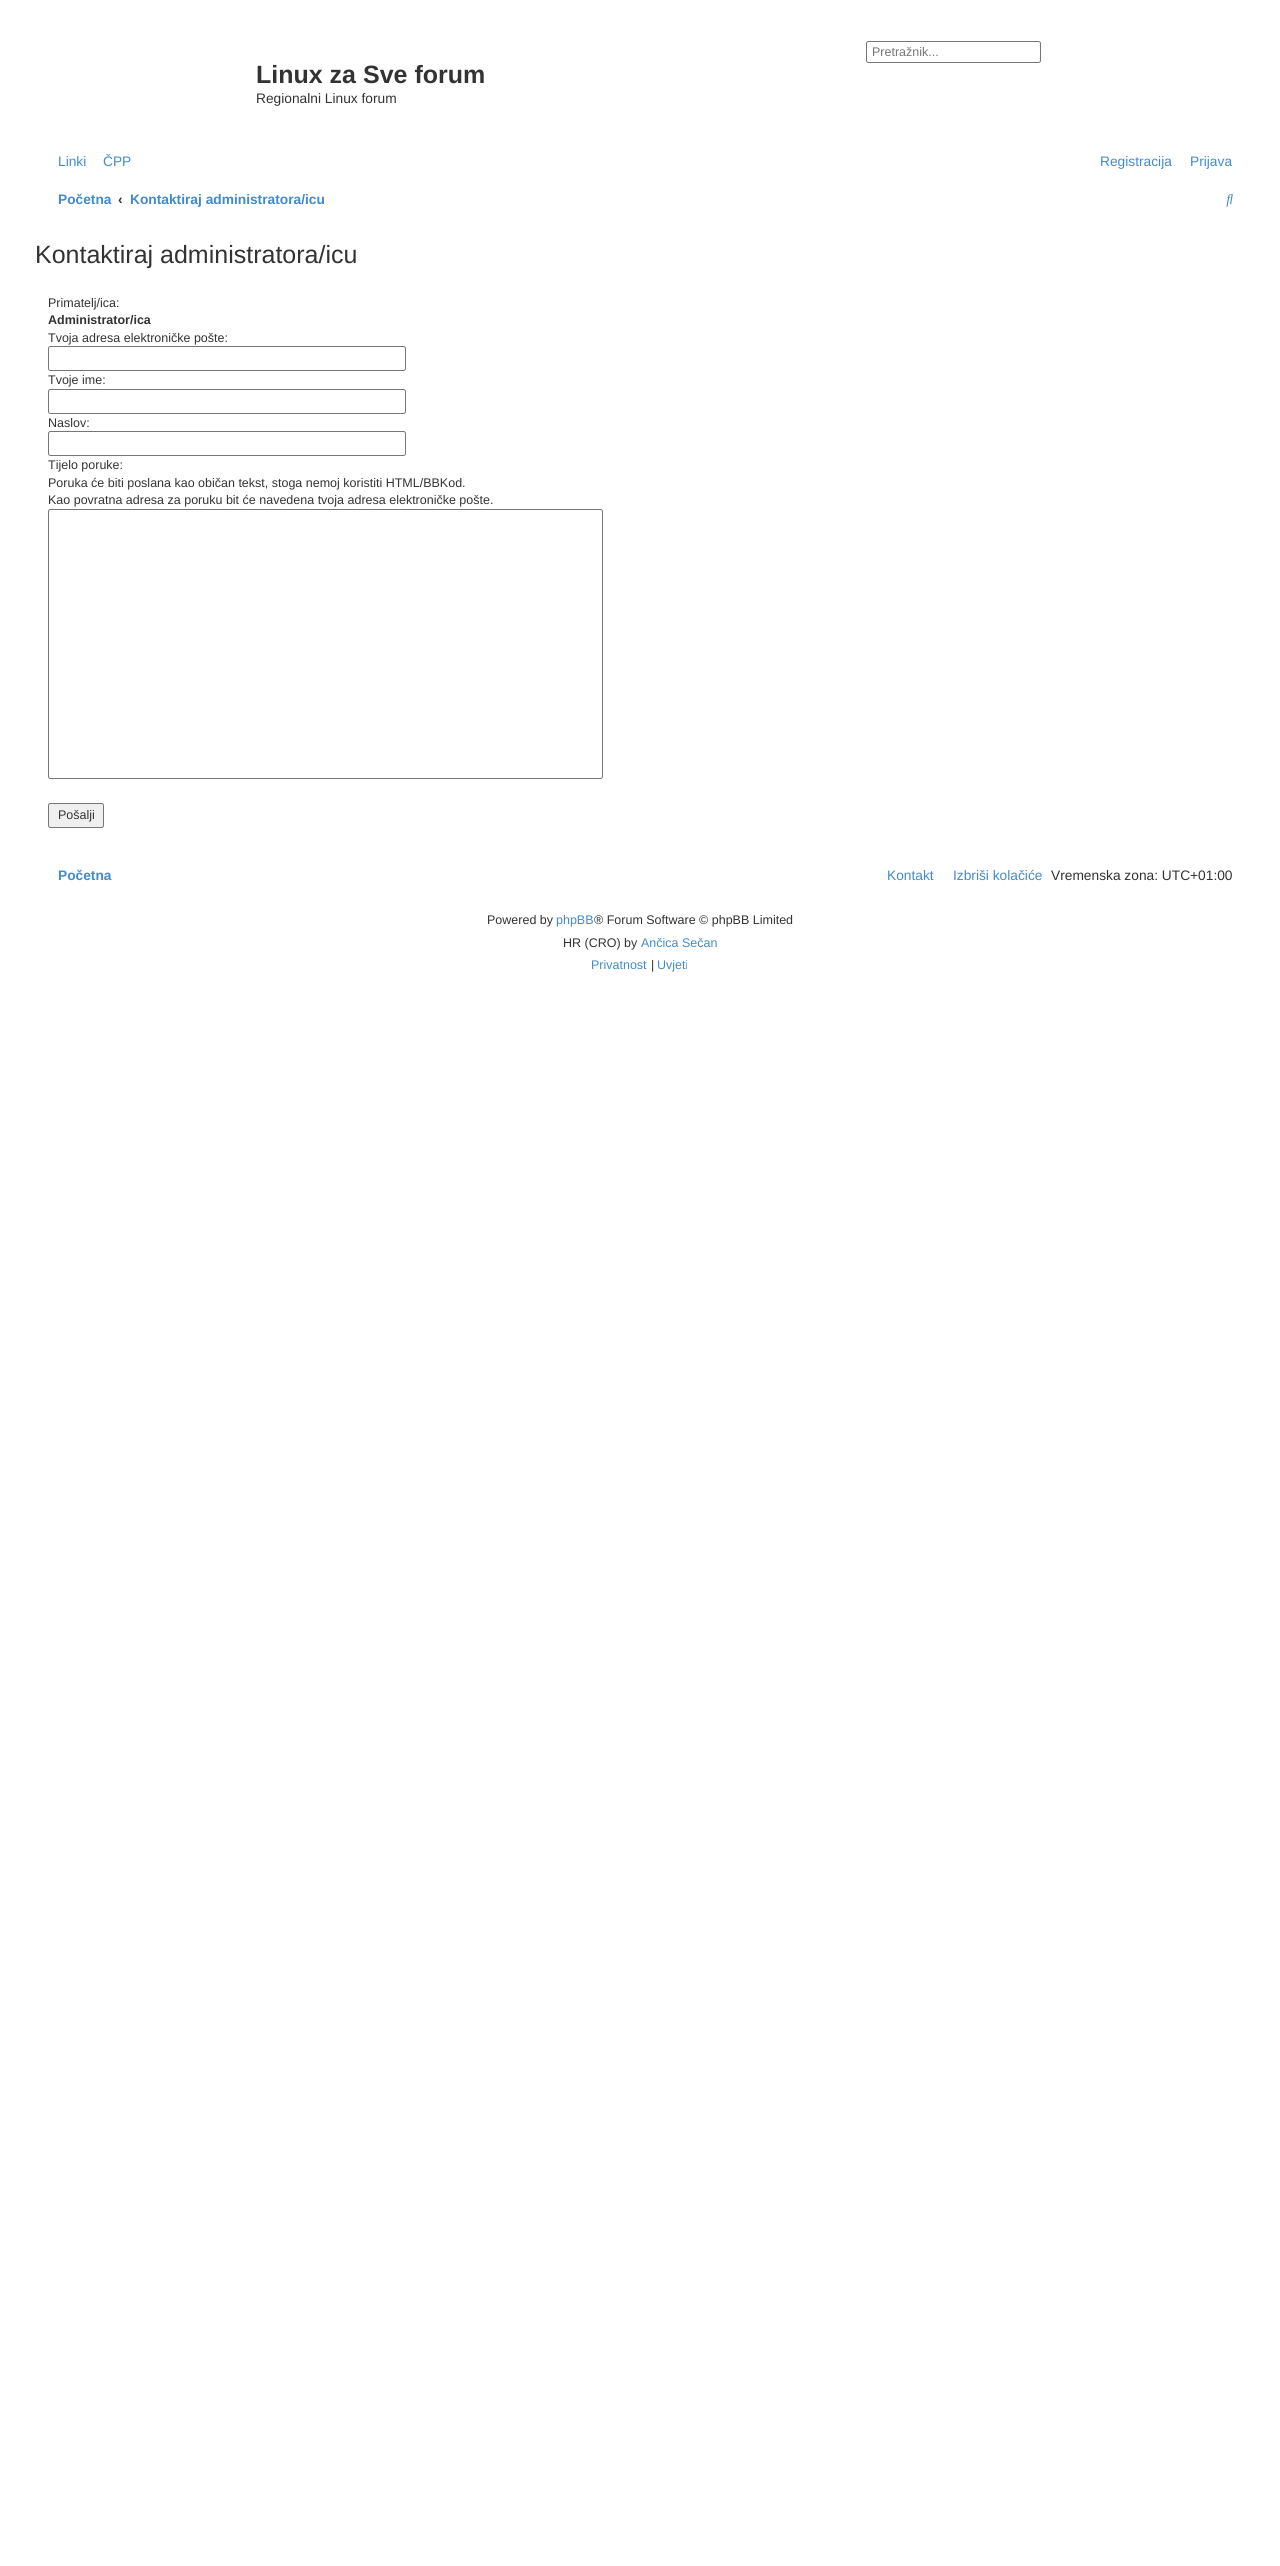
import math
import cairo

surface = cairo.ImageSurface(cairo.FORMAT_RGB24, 1280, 2566)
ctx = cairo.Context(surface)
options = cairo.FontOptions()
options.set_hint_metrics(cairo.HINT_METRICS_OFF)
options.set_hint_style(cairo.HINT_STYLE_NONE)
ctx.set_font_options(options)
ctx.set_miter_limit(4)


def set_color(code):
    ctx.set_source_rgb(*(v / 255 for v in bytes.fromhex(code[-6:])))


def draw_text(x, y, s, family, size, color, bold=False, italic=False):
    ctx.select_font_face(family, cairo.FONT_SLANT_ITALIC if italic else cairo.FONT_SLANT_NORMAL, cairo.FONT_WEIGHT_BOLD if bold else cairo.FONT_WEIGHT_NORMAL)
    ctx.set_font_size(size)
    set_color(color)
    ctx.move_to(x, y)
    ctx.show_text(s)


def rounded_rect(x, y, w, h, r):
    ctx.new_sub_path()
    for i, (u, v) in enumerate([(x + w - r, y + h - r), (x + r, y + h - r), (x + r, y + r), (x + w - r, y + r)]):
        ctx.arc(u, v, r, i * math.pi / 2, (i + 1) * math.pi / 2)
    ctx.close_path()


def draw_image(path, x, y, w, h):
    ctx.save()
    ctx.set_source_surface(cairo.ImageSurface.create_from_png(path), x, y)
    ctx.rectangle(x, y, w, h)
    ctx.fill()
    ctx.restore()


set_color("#ffffff")
ctx.paint()
rounded_rect(866.5, 41.5, 174, 21, 2)
set_color("#767676")
ctx.set_line_width(1)
ctx.stroke()
draw_text(872, 56, "Pretražnik...", "Liberation Sans", 12.5, "#757575")
draw_text(256, 83, "Linux za Sve forum", "Liberation Sans", 25, "#333333", bold=True)
draw_text(256, 103, "Regionalni Linux forum", "Liberation Sans", 13.75, "#333333")
draw_text(58, 166, "Linki", "Liberation Sans", 13.75, "#428bca")
draw_text(103, 166, "ČPP", "Liberation Sans", 13.75, "#428bca")
draw_text(1100, 166, "Registracija", "Liberation Sans", 13.75, "#428bca")
draw_text(1190, 166, "Prijava", "Liberation Sans", 13.75, "#428bca")
draw_text(58, 204, "Početna", "Liberation Sans", 13.75, "#428bca", bold=True)
draw_text(118, 204, "‹", "Liberation Sans", 13.75, "#333333", bold=True)
draw_text(130, 204, "Kontaktiraj administratora/icu", "Liberation Sans", 13.75, "#428bca", bold=True)
draw_image("assets/img1.png", 1226, 194, 7, 13)
draw_text(35, 263, "Kontaktiraj administratora/icu", "Liberation Sans", 25, "#333333")
draw_text(48, 307, "Primatelj/ica:", "Liberation Sans", 12.5, "#333333")
draw_text(48, 324, "Administrator/ica", "Liberation Sans", 12.5, "#333333", bold=True)
draw_text(48, 342, "Tvoja adresa elektroničke pošte:", "Liberation Sans", 12.5, "#333333")
rounded_rect(48.5, 346.5, 357, 24, 2)
set_color("#767676")
ctx.stroke()
draw_text(48, 384, "Tvoje ime:", "Liberation Sans", 12.5, "#333333")
rounded_rect(48.5, 389.5, 357, 24, 2)
set_color("#767676")
ctx.stroke()
draw_text(48, 427, "Naslov:", "Liberation Sans", 12.5, "#333333")
rounded_rect(48.5, 431.5, 357, 24, 2)
set_color("#767676")
ctx.stroke()
draw_text(48, 469, "Tijelo poruke:", "Liberation Sans", 12.5, "#333333")
draw_text(48, 487, "Poruka će biti poslana kao običan tekst, stoga nemoj koristiti HTML/BBKod.", "Liberation Sans", 12.5, "#333333")
draw_text(48, 504, "Kao povratna adresa za poruku bit će navedena tvoja adresa elektroničke pošte.", "Liberation Sans", 12.5, "#333333")
rounded_rect(48.5, 509.5, 554, 269, 2)
set_color("#767676")
ctx.stroke()
set_color("#efefef")
rounded_rect(48.5, 803.5, 55, 24, 2)
ctx.fill_preserve()
set_color("#767676")
ctx.stroke()
draw_text(58, 819, "Pošalji", "Liberation Sans", 12.5, "#333333")
draw_text(58, 880, "Početna", "Liberation Sans", 13.75, "#428bca", bold=True)
draw_text(887, 880, "Kontakt", "Liberation Sans", 13.75, "#428bca")
draw_text(953, 880, "Izbriši kolačiće", "Liberation Sans", 13.75, "#428bca")
draw_text(1051, 880, "Vremenska zona: UTC+01:00", "Liberation Sans", 13.75, "#333333")
draw_text(487, 924, "Powered by", "Liberation Sans", 12.5, "#333333")
draw_text(556, 924, "phpBB", "Liberation Sans", 12.5, "#428bca")
draw_text(594, 924, "® Forum Software © phpBB Limited", "Liberation Sans", 12.5, "#333333")
draw_text(563, 947, "HR (CRO) by", "Liberation Sans", 12.5, "#333333")
draw_text(641, 947, "Ančica Sečan", "Liberation Sans", 12.5, "#428bca")
draw_text(591, 969, "Privatnost", "Liberation Sans", 12.5, "#428bca")
draw_text(651, 969, "|", "Liberation Sans", 12.5, "#333333")
draw_text(657, 969, "Uvjeti", "Liberation Sans", 12.5, "#428bca")
surface.write_to_png("output.png")
